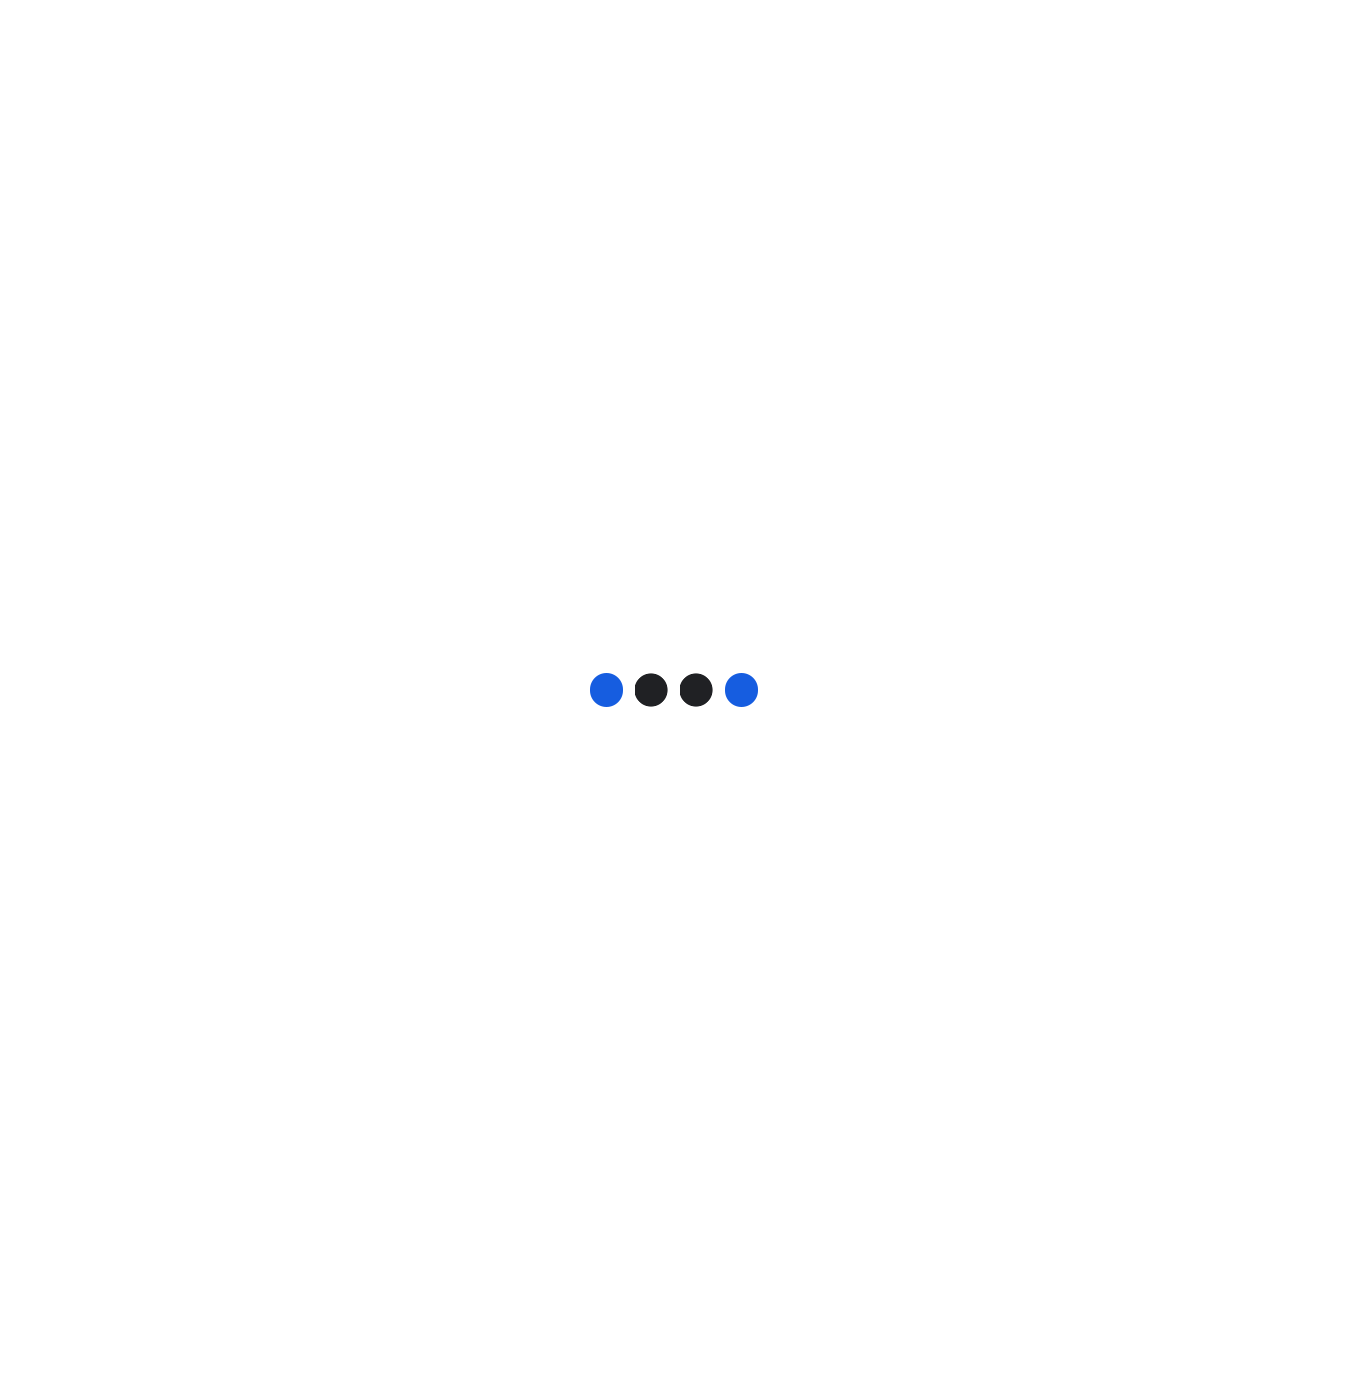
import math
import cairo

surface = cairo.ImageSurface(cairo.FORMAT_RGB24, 1346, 1378)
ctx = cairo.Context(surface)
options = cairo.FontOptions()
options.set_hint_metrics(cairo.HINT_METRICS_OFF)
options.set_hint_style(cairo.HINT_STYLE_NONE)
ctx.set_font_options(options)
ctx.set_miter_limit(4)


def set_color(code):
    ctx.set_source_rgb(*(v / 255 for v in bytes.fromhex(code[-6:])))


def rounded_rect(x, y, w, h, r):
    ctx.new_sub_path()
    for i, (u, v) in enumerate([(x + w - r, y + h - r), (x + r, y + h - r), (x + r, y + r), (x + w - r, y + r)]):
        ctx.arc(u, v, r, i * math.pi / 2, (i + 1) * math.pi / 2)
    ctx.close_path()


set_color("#ffffff")
ctx.paint()
gradient = cairo.RadialGradient(696, 690, 0, 696, 690, 17)
gradient.add_color_stop_rgba(0.95, 0.125, 0.129, 0.141, 1)
gradient.add_color_stop_rgba(1, 1, 1, 1, 1)
ctx.set_source(gradient)
ctx.rectangle(680, 673, 33, 34)
ctx.fill()
gradient = cairo.RadialGradient(651, 690, 0, 651, 690, 17)
gradient.add_color_stop_rgba(0.95, 0.125, 0.129, 0.141, 1)
gradient.add_color_stop_rgba(1, 1, 1, 1, 1)
ctx.set_source(gradient)
ctx.rectangle(635, 673, 33, 34)
ctx.fill()
set_color("#165de0")
rounded_rect(590, 673, 33, 34, 16.5)
ctx.fill()
rounded_rect(725, 673, 33, 34, 16.5)
ctx.fill()
surface.write_to_png("output.png")
